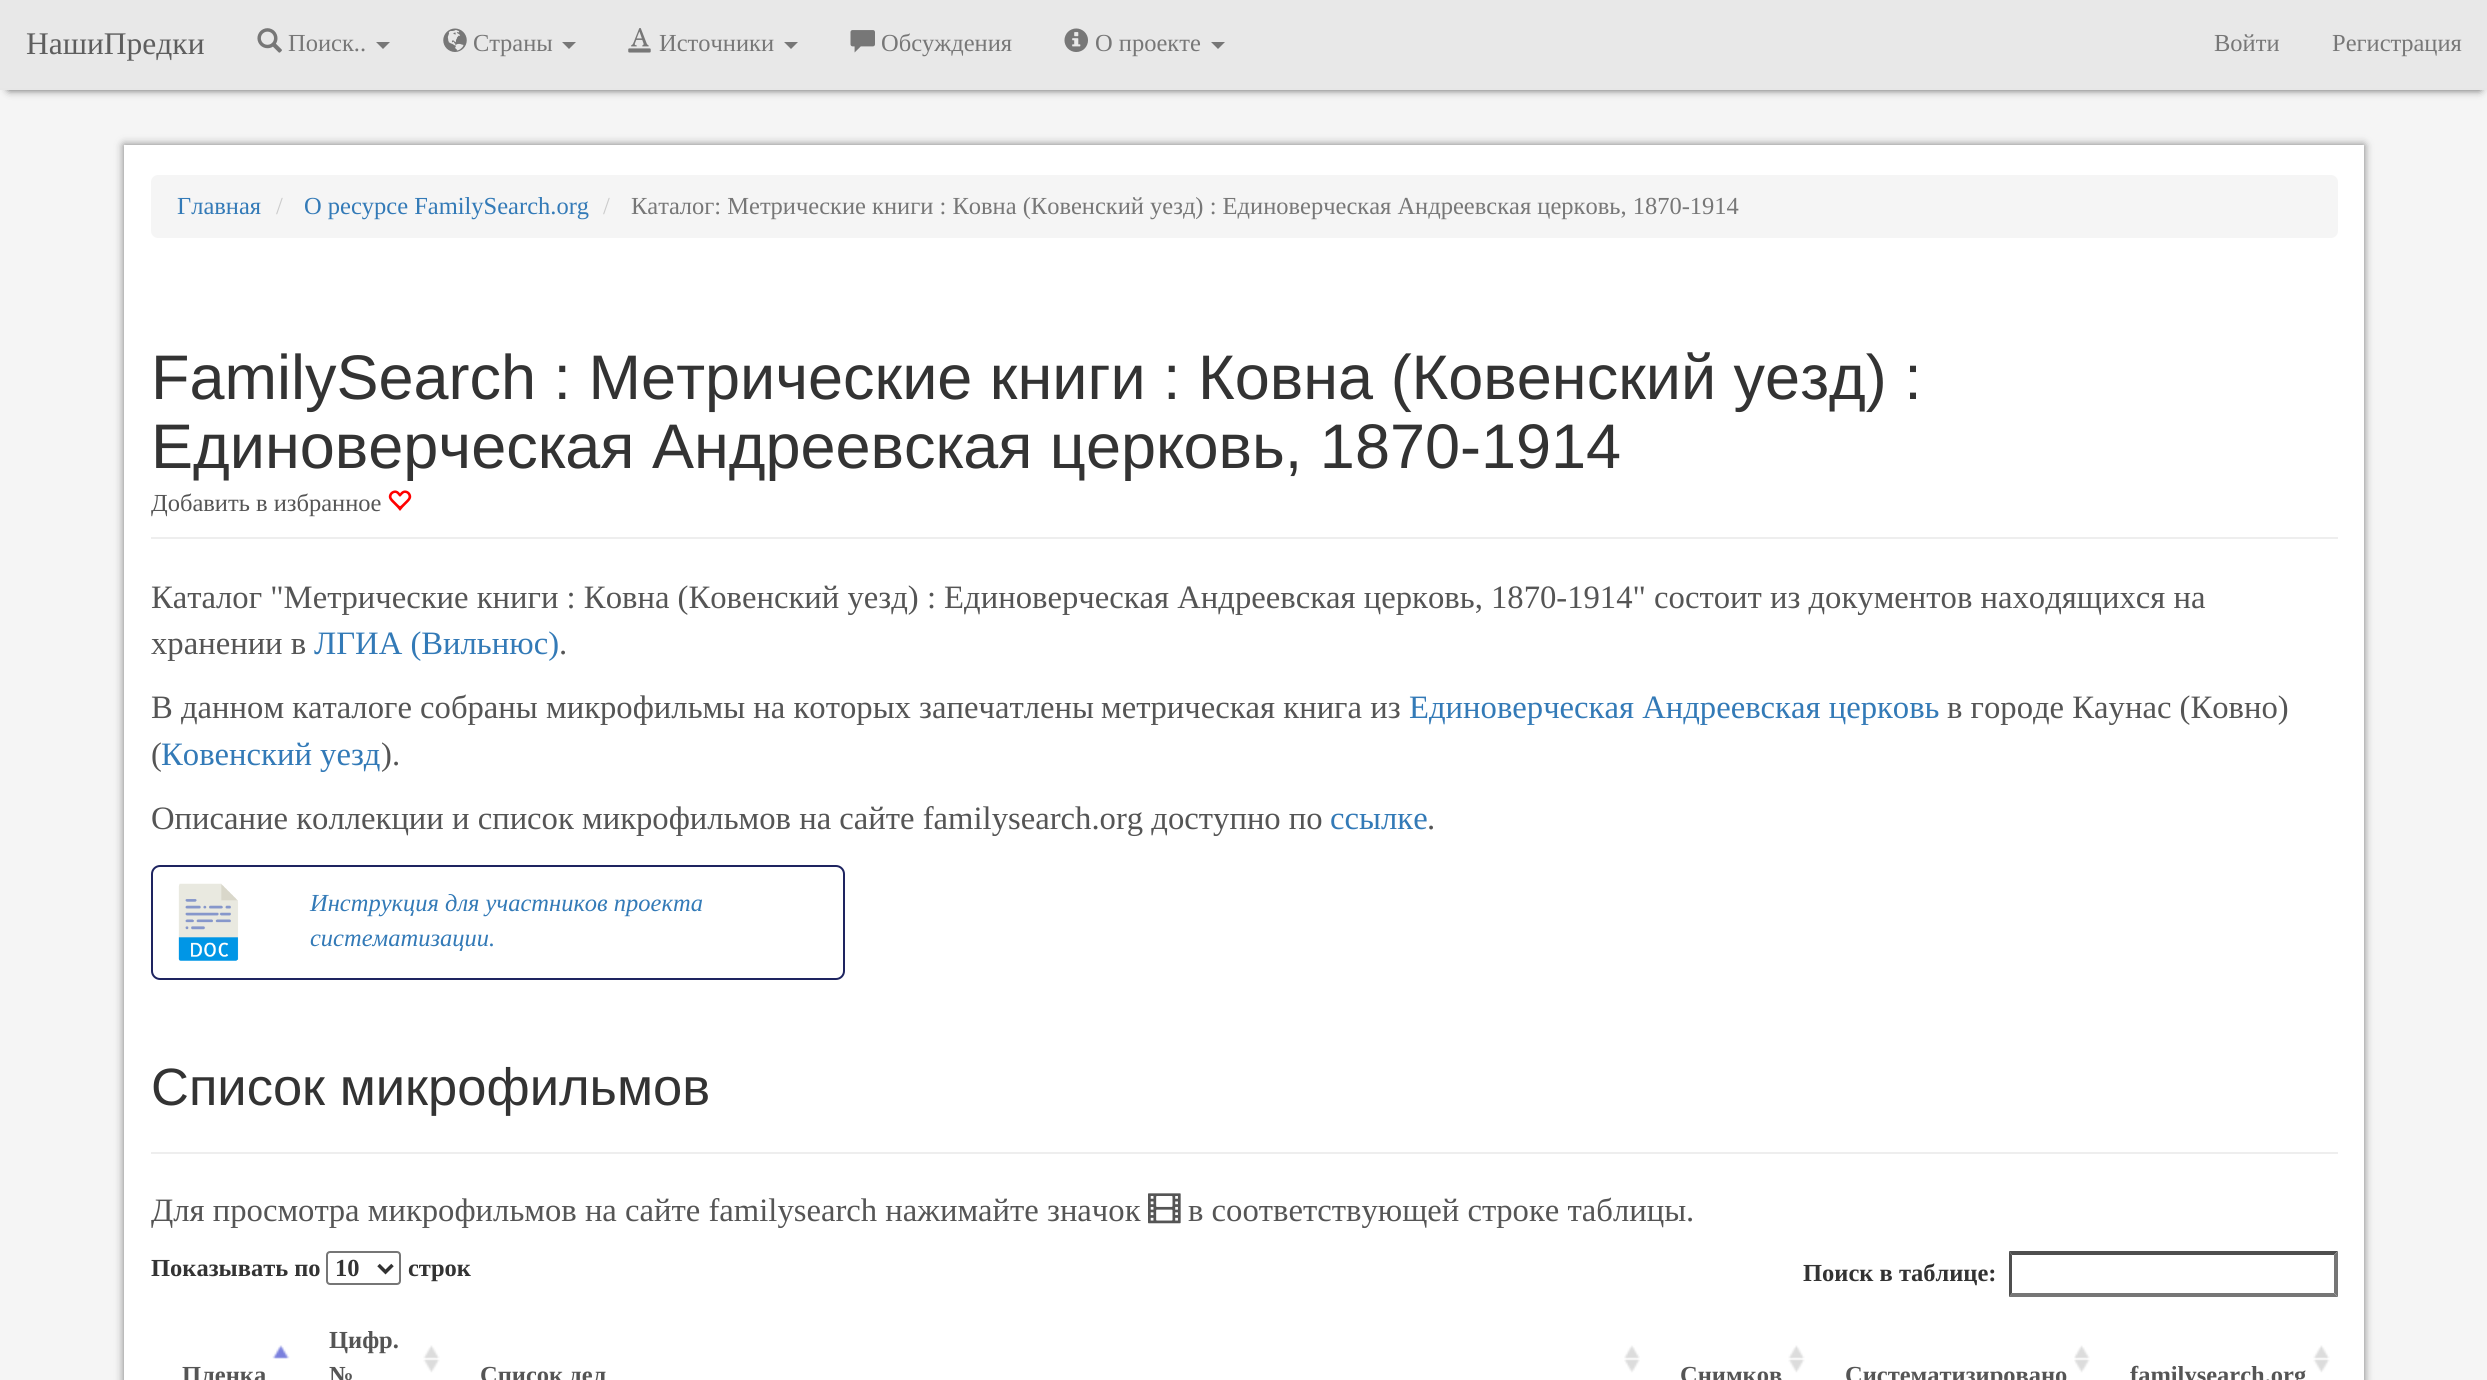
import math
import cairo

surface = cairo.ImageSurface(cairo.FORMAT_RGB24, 2487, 1380)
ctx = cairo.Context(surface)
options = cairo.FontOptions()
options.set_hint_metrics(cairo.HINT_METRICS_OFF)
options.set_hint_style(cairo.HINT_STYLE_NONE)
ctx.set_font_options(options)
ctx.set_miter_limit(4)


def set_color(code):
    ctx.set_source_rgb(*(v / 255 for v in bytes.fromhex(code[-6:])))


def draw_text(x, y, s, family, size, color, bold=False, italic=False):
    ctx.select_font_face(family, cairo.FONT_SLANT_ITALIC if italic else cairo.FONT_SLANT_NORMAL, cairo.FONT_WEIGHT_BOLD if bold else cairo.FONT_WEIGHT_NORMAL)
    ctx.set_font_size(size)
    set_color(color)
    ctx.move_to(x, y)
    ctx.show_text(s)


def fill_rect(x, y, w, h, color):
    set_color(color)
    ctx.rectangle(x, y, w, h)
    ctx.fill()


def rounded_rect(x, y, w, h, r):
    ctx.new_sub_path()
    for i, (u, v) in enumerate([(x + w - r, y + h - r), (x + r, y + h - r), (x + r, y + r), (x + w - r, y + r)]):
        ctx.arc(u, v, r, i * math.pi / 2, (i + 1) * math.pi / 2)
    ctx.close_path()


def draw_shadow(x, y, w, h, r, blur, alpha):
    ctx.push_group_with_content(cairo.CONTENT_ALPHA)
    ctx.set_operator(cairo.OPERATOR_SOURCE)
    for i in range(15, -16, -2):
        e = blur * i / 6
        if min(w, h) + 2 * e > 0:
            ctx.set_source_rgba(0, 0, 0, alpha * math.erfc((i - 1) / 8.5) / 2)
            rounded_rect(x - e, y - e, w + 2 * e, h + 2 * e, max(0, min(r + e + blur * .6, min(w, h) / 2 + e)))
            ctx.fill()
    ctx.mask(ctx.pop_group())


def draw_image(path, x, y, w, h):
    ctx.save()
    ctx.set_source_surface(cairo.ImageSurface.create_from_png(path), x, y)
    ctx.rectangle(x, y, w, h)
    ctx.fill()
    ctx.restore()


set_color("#f5f5f5")
ctx.paint()
set_color("#333333")
draw_shadow(9, 18, 2471, 71, 0, 4.5, 1)
fill_rect(0, 0, 2487, 88, "#e8e8e8")
fill_rect(0, 88, 2487, 2, "#e7e7e7")
draw_text(26, 54, "НашиПредки", "Liberation Serif", 31.5, "#5e5e5e")
draw_image("assets/img1.png", 257, 28, 25, 25)
draw_text(288, 51, "Поиск..", "Liberation Serif", 24.5, "#777777")
ctx.new_path()
ctx.move_to(376, 42)
ctx.line_to(390, 42)
ctx.line_to(383, 49)
ctx.close_path()
ctx.fill()
draw_image("assets/img2.png", 443, 28, 24, 24)
draw_text(473, 51, "Страны", "Liberation Serif", 24.5, "#777777")
ctx.new_path()
ctx.move_to(562, 42)
ctx.line_to(576, 42)
ctx.line_to(569, 49)
ctx.close_path()
ctx.fill()
draw_image("assets/img3.png", 628, 28, 23, 25)
draw_text(659, 51, "Источники", "Liberation Serif", 24.5, "#777777")
ctx.new_path()
ctx.move_to(784, 42)
ctx.line_to(798, 42)
ctx.line_to(791, 49)
ctx.close_path()
ctx.fill()
draw_image("assets/img4.png", 850, 30, 25, 23)
draw_text(881, 51, "Обсуждения", "Liberation Serif", 24.5, "#777777")
draw_image("assets/img5.png", 1064, 28, 24, 24)
draw_text(1095, 51, "О проекте", "Liberation Serif", 24.5, "#777777")
ctx.new_path()
ctx.move_to(1211, 42)
ctx.line_to(1225, 42)
ctx.line_to(1218, 49)
ctx.close_path()
ctx.fill()
draw_text(2214, 51, "Войти", "Liberation Serif", 24.5, "#777777")
draw_text(2332, 51, "Регистрация", "Liberation Serif", 24.5, "#777777")
set_color("#000000")
draw_shadow(124, 145, 2240, 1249, 0, 4.5, 0.5)
fill_rect(124, 145, 2240, 1235, "#ffffff")
set_color("#f5f5f5")
rounded_rect(151, 175, 2187, 63, 7)
ctx.fill()
draw_text(177, 214, "Главная", "Liberation Serif", 24.5, "#337ab7")
draw_text(276, 214, "/", "Liberation Serif", 24.5, "#cccccc")
draw_text(304, 214, "О ресурсе FamilySearch.org", "Liberation Serif", 24.5, "#337ab7")
draw_text(603, 214, "/", "Liberation Serif", 24.5, "#cccccc")
draw_text(631, 214, "Каталог: Метрические книги : Ковна (Ковенский уезд) : Единоверческая Андреевская церковь, 1870-1914", "Liberation Serif", 24.5, "#777777")
fill_rect(151, 537, 2187, 2, "#eeeeee")
draw_text(151, 399, "FamilySearch : Метрические книги : Ковна (Ковенский уезд) :", "Liberation Sans", 63, "#333333")
ctx.save()
ctx.rectangle(151, 343, 2187, 138)
ctx.clip()
draw_text(151, 468, "Единоверческая Андреевская церковь, 1870-1914", "Liberation Sans", 63, "#333333")
ctx.restore()
draw_text(151, 511, "Добавить в избранное", "Liberation Serif", 24.5, "#555555")
draw_image("assets/img6.png", 388, 490, 24, 21)
draw_text(151, 608, "Каталог \"Метрические книги : Ковна (Ковенский уезд) : Единоверческая Андреевская церковь, 1870-1914\" состоит из документов находящихся на", "Liberation Serif", 32.67, "#555555")
draw_text(151, 654, "хранении в", "Liberation Serif", 32.67, "#555555")
draw_text(314, 654, "ЛГИА (Вильнюс)", "Liberation Serif", 32.67, "#337ab7")
draw_text(559, 654, ".", "Liberation Serif", 32.67, "#555555")
draw_text(151, 718, "В данном каталоге собраны микрофильмы на которых запечатлены", "Liberation Serif", 32.67, "#555555")
draw_text(1101, 718, "метрическая книга из", "Liberation Serif", 32.67, "#555555")
draw_text(1409, 718, "Единоверческая Андреевская церковь", "Liberation Serif", 32.67, "#337ab7")
draw_text(1947, 718, "в городе Каунас (Ковно)", "Liberation Serif", 32.67, "#555555")
draw_text(151, 765, "(", "Liberation Serif", 32.67, "#555555")
draw_text(161, 765, "Ковенский уезд", "Liberation Serif", 32.67, "#337ab7")
draw_text(381, 765, ").", "Liberation Serif", 32.67, "#555555")
draw_text(151, 829, "Описание коллекции и список микрофильмов на сайте familysearch.org доступно по", "Liberation Serif", 32.67, "#555555")
draw_text(1330, 829, "ссылке", "Liberation Serif", 32.67, "#337ab7")
draw_text(1427, 829, ".", "Liberation Serif", 32.67, "#555555")
rounded_rect(152, 866, 692, 113, 8)
set_color("#1e2460")
ctx.stroke()
draw_image("assets/img7.png", 178, 883, 61, 78)
draw_text(310, 911, "Инструкция для участников проекта", "Liberation Serif", 24.5, "#337ab7", italic=True)
draw_text(310, 946, "систематизации.", "Liberation Serif", 24.5, "#337ab7", italic=True)
draw_text(151, 1105, "Список микрофильмов", "Liberation Sans", 52.5, "#333333")
fill_rect(151, 1152, 2187, 2, "#eeeeee")
draw_text(151, 1221, "Для просмотра микрофильмов на сайте familysearch нажимайте значок", "Liberation Serif", 32.67, "#555555")
draw_image("assets/img8.png", 1148, 1193, 33, 31)
draw_text(1188, 1221, "в соответствующей строке таблицы.", "Liberation Serif", 32.67, "#555555")
draw_text(151, 1276, "Показывать по", "Liberation Serif", 24.5, "#333333", bold=True)
rounded_rect(327, 1252, 73, 32, 3)
set_color("#767676")
ctx.stroke()
ctx.new_path()
ctx.move_to(378.5, 1265)
ctx.line_to(385.5, 1272)
ctx.line_to(392.5, 1265)
set_color("#333333")
ctx.set_line_width(3.5)
ctx.stroke()
draw_text(335, 1276, "10", "Liberation Serif", 24.5, "#333333", bold=True)
draw_text(408, 1276, "строк", "Liberation Serif", 24.5, "#333333", bold=True)
draw_text(1803, 1281, "Поиск в таблице:", "Liberation Serif", 24.5, "#333333", bold=True)
set_color("#4f4f4f")
ctx.new_path()
ctx.move_to(2009, 1251)
ctx.line_to(2338, 1251)
ctx.line_to(2334, 1255)
ctx.line_to(2012, 1255)
ctx.close_path()
ctx.fill()
set_color("#767676")
ctx.new_path()
ctx.move_to(2338, 1251)
ctx.line_to(2338, 1297)
ctx.line_to(2334, 1293)
ctx.line_to(2334, 1255)
ctx.close_path()
ctx.fill()
ctx.new_path()
ctx.move_to(2338, 1297)
ctx.line_to(2009, 1297)
ctx.line_to(2012, 1293)
ctx.line_to(2334, 1293)
ctx.close_path()
ctx.fill()
set_color("#4f4f4f")
ctx.new_path()
ctx.move_to(2009, 1297)
ctx.line_to(2009, 1251)
ctx.line_to(2012, 1255)
ctx.line_to(2012, 1293)
ctx.close_path()
ctx.fill()
draw_image("assets/img9.png", 272, 1345, 18, 14)
draw_text(182, 1383, "Пленка", "Liberation Serif", 24.5, "#555555", bold=True)
draw_image("assets/img10.png", 423, 1345, 17, 28)
draw_text(329, 1348, "Цифр.", "Liberation Serif", 24.5, "#555555", bold=True)
draw_text(329, 1383, "№", "Liberation Serif", 24.5, "#555555", bold=True)
draw_image("assets/img11.png", 1624, 1345, 16, 28)
draw_text(480, 1383, "Список дел", "Liberation Serif", 24.5, "#555555", bold=True)
draw_image("assets/img10.png", 1788, 1345, 17, 28)
draw_text(1680, 1383, "Снимков", "Liberation Serif", 24.5, "#555555", bold=True)
draw_image("assets/img12.png", 2074, 1345, 16, 28)
draw_text(1845, 1383, "Систематизировано", "Liberation Serif", 24.5, "#555555", bold=True)
draw_image("assets/img10.png", 2313, 1345, 17, 28)
draw_text(2130, 1383, "familysearch.org", "Liberation Serif", 24.5, "#555555", bold=True)
surface.write_to_png("output.png")
